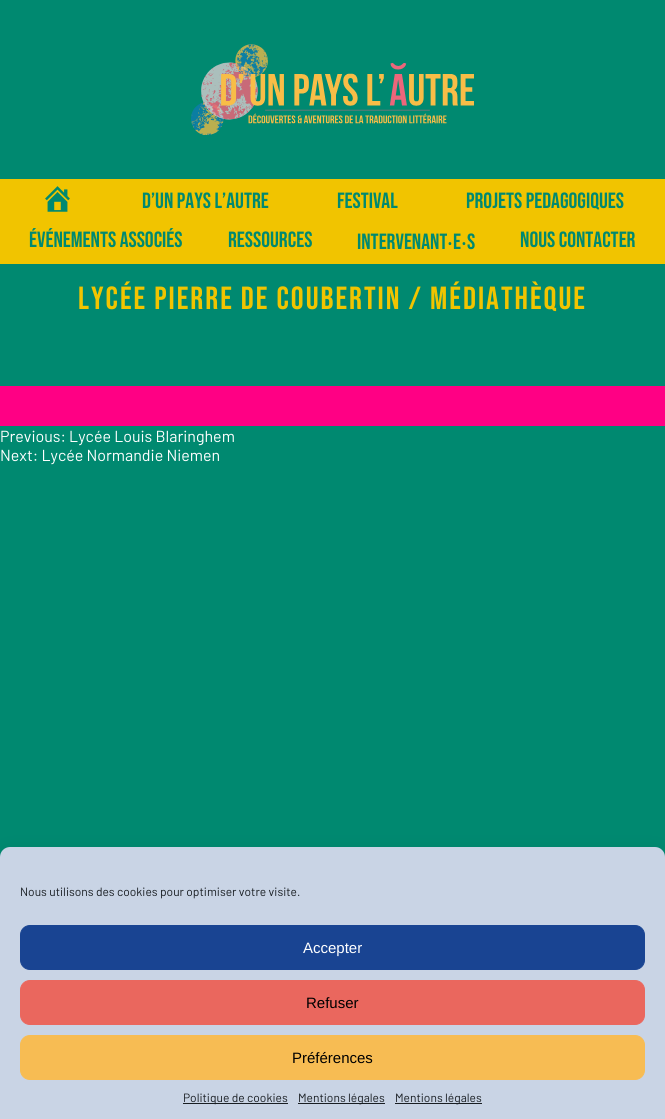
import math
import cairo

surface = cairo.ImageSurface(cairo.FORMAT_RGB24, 665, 1119)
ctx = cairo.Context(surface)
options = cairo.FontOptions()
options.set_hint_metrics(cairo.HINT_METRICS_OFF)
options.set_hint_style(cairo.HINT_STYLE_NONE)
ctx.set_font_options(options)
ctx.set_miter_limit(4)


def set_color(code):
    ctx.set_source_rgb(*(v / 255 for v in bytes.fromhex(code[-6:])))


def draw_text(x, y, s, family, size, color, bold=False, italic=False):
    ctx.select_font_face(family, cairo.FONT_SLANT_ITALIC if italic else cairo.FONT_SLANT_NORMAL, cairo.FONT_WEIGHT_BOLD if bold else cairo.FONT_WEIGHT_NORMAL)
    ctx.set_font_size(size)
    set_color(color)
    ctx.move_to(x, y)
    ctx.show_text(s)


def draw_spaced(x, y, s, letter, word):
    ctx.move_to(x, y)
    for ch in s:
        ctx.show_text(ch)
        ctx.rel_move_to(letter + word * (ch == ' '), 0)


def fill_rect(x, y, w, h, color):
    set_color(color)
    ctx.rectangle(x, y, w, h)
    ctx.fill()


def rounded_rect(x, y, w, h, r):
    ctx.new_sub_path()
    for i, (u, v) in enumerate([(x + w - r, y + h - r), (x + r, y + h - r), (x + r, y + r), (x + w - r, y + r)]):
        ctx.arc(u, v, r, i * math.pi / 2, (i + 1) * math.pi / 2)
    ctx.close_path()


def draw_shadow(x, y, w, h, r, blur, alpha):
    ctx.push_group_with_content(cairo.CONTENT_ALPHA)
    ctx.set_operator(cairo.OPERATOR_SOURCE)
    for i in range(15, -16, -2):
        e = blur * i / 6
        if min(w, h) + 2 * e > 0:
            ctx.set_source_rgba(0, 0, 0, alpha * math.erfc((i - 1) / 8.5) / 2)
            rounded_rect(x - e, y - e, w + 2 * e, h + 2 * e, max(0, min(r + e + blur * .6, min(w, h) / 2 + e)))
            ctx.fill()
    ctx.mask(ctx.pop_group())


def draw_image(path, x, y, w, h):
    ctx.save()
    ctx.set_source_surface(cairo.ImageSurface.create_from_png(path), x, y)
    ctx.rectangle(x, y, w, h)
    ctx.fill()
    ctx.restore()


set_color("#008970")
ctx.paint()
draw_image("assets/img1.png", 191, 44, 283, 91)
fill_rect(0, 179, 665, 85, "#f1c400")
draw_image("assets/img2.png", 45, 186, 25, 26)
draw_text(142, 208, "D’UN PAYS L’AUTRE", "Bebas Neue", 22, "#008970")
draw_text(337, 208, "FESTIVAL", "Bebas Neue", 22, "#008970")
draw_text(466, 208, "PROJETS PEDAGOGIQUES", "Bebas Neue", 22, "#008970")
draw_text(29, 247, "ÉVÉNEMENTS ASSOCIÉS", "Bebas Neue", 22, "#008970")
draw_text(228, 247, "RESSOURCES", "Bebas Neue", 22, "#008970")
draw_text(357, 249, "INTERVENANT", "Bebas Neue", 22, "#008970")
draw_text(447, 249, "‧", "Noto Sans", 22, "#008970")
draw_text(453, 249, "E", "Bebas Neue", 22, "#008970")
draw_text(461, 249, "‧", "Noto Sans", 22, "#008970")
draw_text(467, 249, "S", "Bebas Neue", 22, "#008970")
draw_text(520, 247, "NOUS CONTACTER", "Bebas Neue", 22, "#008970")
ctx.set_font_size(32)
set_color("#f1c400")
draw_spaced(78, 309, "LYCÉE PIERRE DE COUBERTIN / MÉDIATHÈQUE", 2, 0)
fill_rect(0, 386, 665, 40, "#ff0084")
draw_text(0, 442, "Previous: Lycée Louis Blaringhem", "Barlow", 16, "#ffffff")
draw_text(0, 461, "Next: Lycée Normandie Niemen", "Barlow", 16, "#ffffff")
set_color("#000000")
draw_shadow(0, 857, 665, 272, 10, 10, 0.19)
set_color("#c9d4e5")
ctx.new_path()
ctx.move_to(10, 847)
ctx.line_to(655, 847)
ctx.curve_to(660.5, 847, 665, 851.5, 665, 857)
ctx.line_to(665, 1119)
ctx.line_to(0, 1119)
ctx.line_to(0, 857)
ctx.curve_to(0, 851.5, 4.5, 847, 10, 847)
ctx.close_path()
ctx.fill()
draw_text(20, 896, "Nous utilisons des cookies pour optimiser votre visite.", "Barlow", 12, "#191e23")
set_color("#194492")
rounded_rect(20.5, 925.5, 624, 44, 9.5)
ctx.fill_preserve()
ctx.set_line_width(1)
ctx.stroke()
draw_text(303, 953, "Accepter", "Liberation Sans", 15, "#ffffff")
set_color("#ea675e")
rounded_rect(20.5, 980.5, 624, 44, 9.5)
ctx.fill_preserve()
ctx.stroke()
draw_text(306, 1008, "Refuser", "Liberation Sans", 15, "#000000")
set_color("#f7bc53")
rounded_rect(20.5, 1035.5, 624, 44, 9.5)
ctx.fill_preserve()
ctx.stroke()
draw_text(292, 1063, "Préférences", "Liberation Sans", 15, "#000000")
fill_rect(183, 1103, 105, 1, "#191e23")
draw_text(183, 1102, "Politique de cookies", "Barlow", 12, "#191e23")
fill_rect(298, 1103, 87, 1, "#191e23")
draw_text(298, 1102, "Mentions légales", "Barlow", 12, "#191e23")
fill_rect(395, 1103, 87, 1, "#191e23")
draw_text(395, 1102, "Mentions légales", "Barlow", 12, "#191e23")
surface.write_to_png("output.png")
